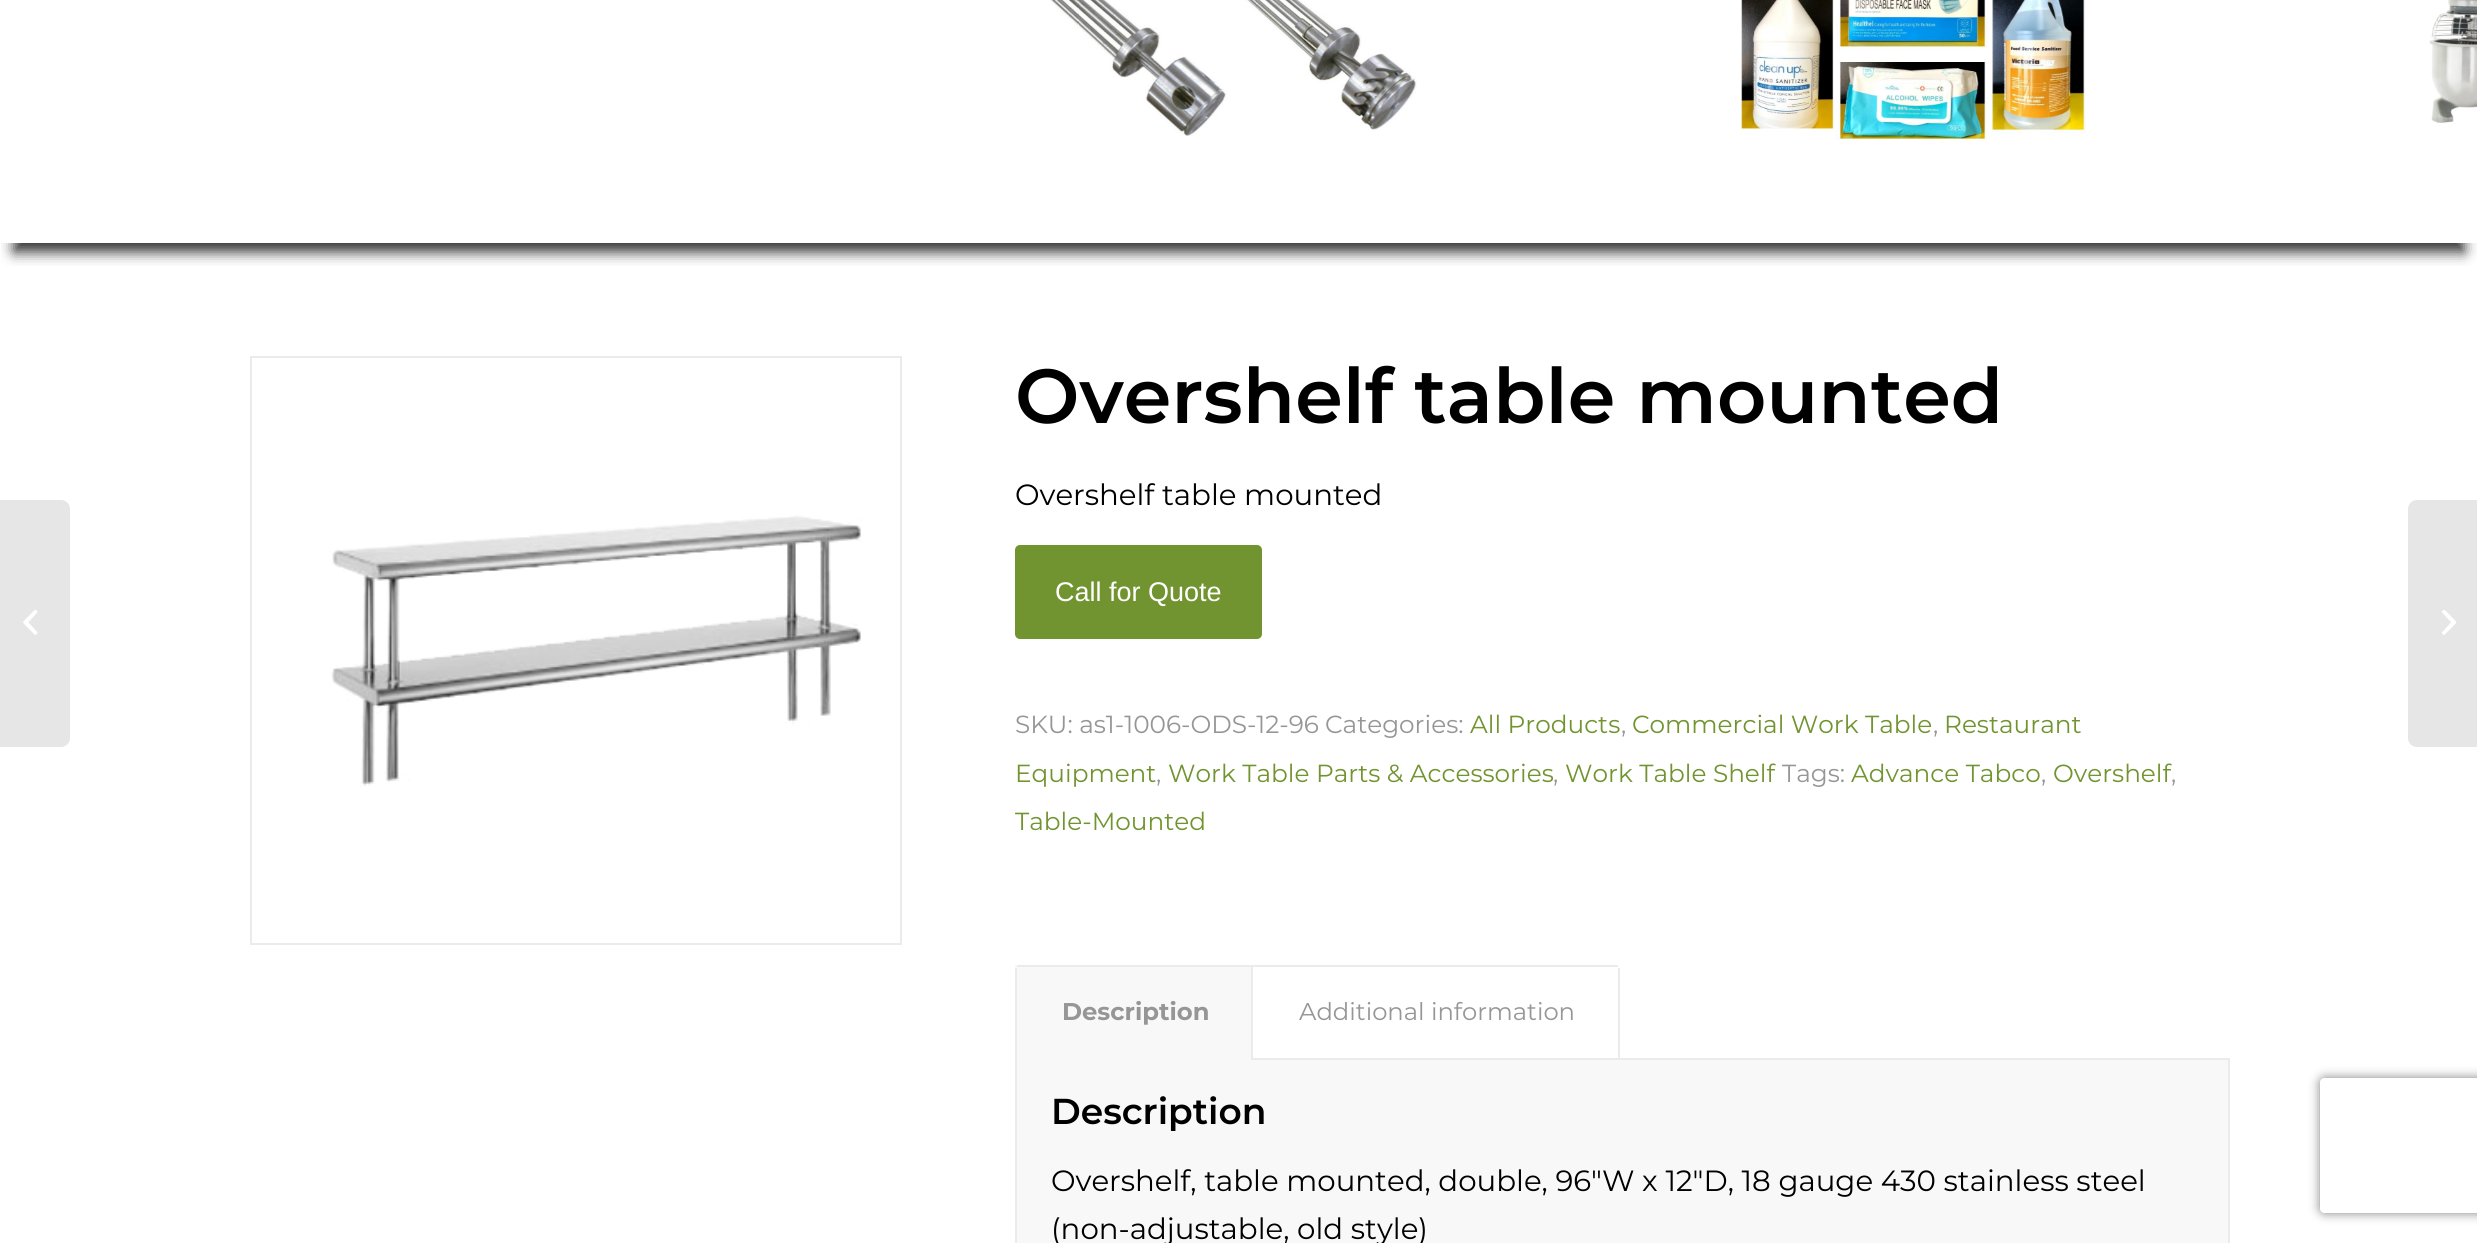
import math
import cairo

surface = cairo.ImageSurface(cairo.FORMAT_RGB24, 2477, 1243)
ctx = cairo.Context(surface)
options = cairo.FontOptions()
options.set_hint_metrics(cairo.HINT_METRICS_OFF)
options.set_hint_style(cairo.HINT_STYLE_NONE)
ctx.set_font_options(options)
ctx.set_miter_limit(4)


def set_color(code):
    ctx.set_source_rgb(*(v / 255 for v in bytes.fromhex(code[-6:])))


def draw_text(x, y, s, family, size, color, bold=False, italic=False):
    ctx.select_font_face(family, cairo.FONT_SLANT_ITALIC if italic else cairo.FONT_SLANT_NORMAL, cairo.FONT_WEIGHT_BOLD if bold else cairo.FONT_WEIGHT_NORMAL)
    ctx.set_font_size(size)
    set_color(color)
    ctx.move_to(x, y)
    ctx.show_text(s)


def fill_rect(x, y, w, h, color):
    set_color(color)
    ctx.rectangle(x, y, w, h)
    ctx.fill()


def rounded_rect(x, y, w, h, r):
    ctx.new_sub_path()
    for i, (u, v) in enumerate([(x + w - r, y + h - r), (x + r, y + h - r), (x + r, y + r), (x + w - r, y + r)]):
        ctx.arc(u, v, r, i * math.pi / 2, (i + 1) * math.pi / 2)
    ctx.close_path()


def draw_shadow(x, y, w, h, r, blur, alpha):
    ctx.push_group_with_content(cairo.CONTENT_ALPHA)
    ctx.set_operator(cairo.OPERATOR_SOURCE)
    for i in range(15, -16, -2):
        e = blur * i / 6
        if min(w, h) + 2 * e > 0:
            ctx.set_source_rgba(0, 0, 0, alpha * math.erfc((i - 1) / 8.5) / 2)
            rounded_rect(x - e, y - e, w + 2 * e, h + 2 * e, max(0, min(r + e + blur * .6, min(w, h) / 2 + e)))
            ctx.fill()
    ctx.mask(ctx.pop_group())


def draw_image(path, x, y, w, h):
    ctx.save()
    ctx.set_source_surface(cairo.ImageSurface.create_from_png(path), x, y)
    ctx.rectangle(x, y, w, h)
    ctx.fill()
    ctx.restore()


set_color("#ffffff")
ctx.paint()
ctx.save()
ctx.rectangle(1, 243, 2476, 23)
ctx.clip()
set_color("#000000")
draw_shadow(14, -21, 2450, 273, 0, 7, 0.8)
ctx.restore()
draw_image("assets/img1.png", 1050, 0, 367, 136)
draw_image("assets/img2.png", 1740, 0, 346, 140)
draw_image("assets/img3.png", 2429, 0, 48, 123)
set_color("#e6e6e6")
ctx.new_path()
ctx.move_to(0, 500)
ctx.line_to(61, 500)
ctx.curve_to(66, 500, 70, 504, 70, 509)
ctx.line_to(70, 738)
ctx.curve_to(70, 743, 66, 747, 61, 747)
ctx.line_to(0, 747)
ctx.close_path()
ctx.fill()
draw_image("assets/img4.png", 23, 609, 15, 26)
ctx.rectangle(251, 357, 650, 587)
set_color("#ebebeb")
ctx.stroke()
draw_image("assets/img5.png", 330, 515, 532, 280)
draw_text(1015, 423, "Overshelf table mounted", "Montserrat SemiBold", 76.5, "#000000")
draw_text(1015, 505, "Overshelf table mounted", "Montserrat", 29.25, "#000000")
set_color("#719430")
rounded_rect(1015, 545, 247, 94, 5)
ctx.fill()
draw_text(1055, 601, "Call for Quote", "Liberation Sans", 27, "#ffffff")
draw_text(1015, 733, "SKU: as1-1006-ODS-12-96", "Montserrat", 24.75, "#969696")
draw_text(1325, 733, "Categories:", "Montserrat", 24.75, "#969696")
draw_text(1470, 733, "All Products", "Montserrat", 24.75, "#719430")
draw_text(1621, 733, ",", "Montserrat", 24.75, "#969696")
draw_text(1632, 733, "Commercial Work Table", "Montserrat", 24.75, "#719430")
draw_text(1933, 733, ",", "Montserrat", 24.75, "#969696")
draw_text(1944, 733, "Restaurant", "Montserrat", 24.75, "#719430")
draw_text(1015, 782, "Equipment", "Montserrat", 24.75, "#719430")
draw_text(1156, 782, ",", "Montserrat", 24.75, "#969696")
draw_text(1168, 782, "Work Table Parts & Accessories", "Montserrat", 24.75, "#719430")
draw_text(1553, 782, ",", "Montserrat", 24.75, "#969696")
draw_text(1565, 782, "Work Table Shelf", "Montserrat", 24.75, "#719430")
draw_text(1782, 782, "Tags:", "Montserrat", 24.75, "#969696")
draw_text(1851, 782, "Advance Tabco", "Montserrat", 24.75, "#719430")
draw_text(2041, 782, ",", "Montserrat", 24.75, "#969696")
draw_text(2053, 782, "Overshelf", "Montserrat", 24.75, "#719430")
draw_text(2171, 782, ",", "Montserrat", 24.75, "#969696")
ctx.save()
ctx.rectangle(1015, 356, 1215, 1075)
ctx.clip()
draw_text(1015, 830, "Table-Mounted", "Montserrat", 24.75, "#719430")
ctx.restore()
set_color("#f8f8f8")
ctx.rectangle(1016, 1059, 1213, 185)
ctx.fill_preserve()
set_color("#ebebeb")
ctx.stroke()
fill_rect(1015, 965, 236, 95, "#f8f8f8")
fill_rect(1251, 965, 367, 2, "#ebebeb")
fill_rect(1017, 965, 236, 2, "#ebebeb")
fill_rect(1251, 965, 2, 95, "#ebebeb")
fill_rect(1015, 968, 2, 92, "#ebebeb")
draw_text(1062, 1020, "Description", "Montserrat", 24.25, "#969696", bold=True)
fill_rect(1618, 968, 2, 92, "#ebebeb")
draw_text(1299, 1020, "Additional information", "Montserrat", 24.25, "#969696")
draw_text(1051, 1124, "Description", "Montserrat SemiBold", 36, "#000000")
draw_text(1051, 1191, "Overshelf, table mounted, double, 96″W x 12″D, 18 gauge 430 stainless steel", "Montserrat", 29.25, "#000000")
draw_text(1051, 1239, "(non-adjustable, old style)", "Montserrat", 29.25, "#000000")
set_color("#e6e6e6")
ctx.new_path()
ctx.move_to(2417, 500)
ctx.line_to(2477, 500)
ctx.line_to(2477, 747)
ctx.line_to(2417, 747)
ctx.curve_to(2412, 747, 2408, 743, 2408, 738)
ctx.line_to(2408, 509)
ctx.curve_to(2408, 504, 2412, 500, 2417, 500)
ctx.close_path()
ctx.fill()
draw_image("assets/img6.png", 2442, 610, 15, 25)
ctx.save()
ctx.set_fill_rule(cairo.FILL_RULE_EVEN_ODD)
ctx.new_path()
ctx.move_to(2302, 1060)
ctx.line_to(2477, 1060)
ctx.line_to(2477, 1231)
ctx.line_to(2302, 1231)
ctx.close_path()
ctx.move_to(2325, 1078)
ctx.line_to(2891, 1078)
ctx.curve_to(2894, 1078, 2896, 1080, 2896, 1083)
ctx.line_to(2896, 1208)
ctx.curve_to(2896, 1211, 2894, 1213, 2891, 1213)
ctx.line_to(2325, 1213)
ctx.curve_to(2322, 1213, 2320, 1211, 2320, 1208)
ctx.line_to(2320, 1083)
ctx.curve_to(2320, 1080, 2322, 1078, 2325, 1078)
ctx.close_path()
ctx.clip()
set_color("#808080")
draw_shadow(2320, 1078, 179, 135, 5, 5.5, 1)
ctx.restore()
surface.write_to_png("output.png")
